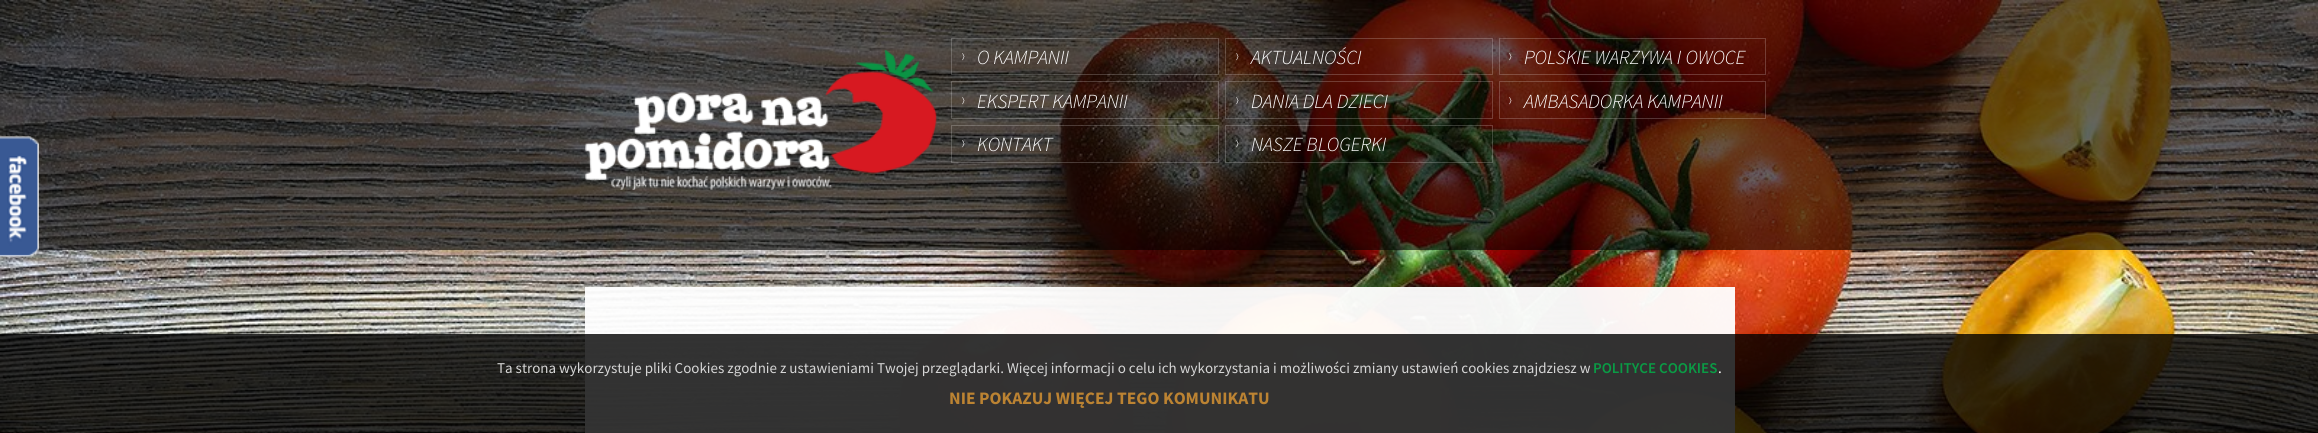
import math
import cairo

surface = cairo.ImageSurface(cairo.FORMAT_RGB24, 2318, 433)
ctx = cairo.Context(surface)
options = cairo.FontOptions()
options.set_hint_metrics(cairo.HINT_METRICS_OFF)
options.set_hint_style(cairo.HINT_STYLE_NONE)
ctx.set_font_options(options)
ctx.set_miter_limit(4)


def set_color(code):
    ctx.set_source_rgb(*(v / 255 for v in bytes.fromhex(code[-6:])))


def draw_text(x, y, s, family, size, color, bold=False, italic=False):
    ctx.select_font_face(family, cairo.FONT_SLANT_ITALIC if italic else cairo.FONT_SLANT_NORMAL, cairo.FONT_WEIGHT_BOLD if bold else cairo.FONT_WEIGHT_NORMAL)
    ctx.set_font_size(size)
    set_color(color)
    ctx.move_to(x, y)
    ctx.show_text(s)


def draw_image(path, x, y, w, h):
    ctx.save()
    ctx.set_source_surface(cairo.ImageSurface.create_from_png(path), x, y)
    ctx.rectangle(x, y, w, h)
    ctx.fill()
    ctx.restore()


set_color("#ffffff")
ctx.paint()
draw_image("assets/img1.png", 0, 0, 2318, 433)
ctx.set_source_rgba(0, 0, 0, 0.6)
ctx.rectangle(0, 0, 2318, 250)
ctx.fill()
draw_image("assets/img2.png", 585, 50, 352, 140)
ctx.rectangle(951.5, 38.5, 267, 36)
ctx.set_source_rgba(1, 1, 1, 0.2)
ctx.set_line_width(1)
ctx.stroke()
draw_text(962, 59, "〉", "FreeSans", 8, "#ffffff")
draw_text(977, 64, "O KAMPANII", "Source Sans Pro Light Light", 20, "#ffffff", italic=True)
ctx.rectangle(1225.5, 38.5, 267, 36)
ctx.set_source_rgba(1, 1, 1, 0.2)
ctx.stroke()
draw_text(1236, 59, "〉", "FreeSans", 8, "#ffffff")
draw_text(1251, 64, "AKTUALNOŚCI", "Source Sans Pro Light Light", 20, "#ffffff", italic=True)
ctx.rectangle(1499.5, 38.5, 266, 36)
ctx.set_source_rgba(1, 1, 1, 0.2)
ctx.stroke()
draw_text(1509, 59, "〉", "FreeSans", 8, "#ffffff")
draw_text(1524, 64, "POLSKIE WARZYWA I OWOCE", "Source Sans Pro Light Light", 20, "#ffffff", italic=True)
ctx.rectangle(951.5, 81.5, 267, 37)
ctx.set_source_rgba(1, 1, 1, 0.2)
ctx.stroke()
draw_text(962, 103, "〉", "FreeSans", 8, "#ffffff")
draw_text(977, 108, "EKSPERT KAMPANII", "Source Sans Pro Light Light", 20, "#ffffff", italic=True)
ctx.rectangle(1225.5, 81.5, 267, 37)
ctx.set_source_rgba(1, 1, 1, 0.2)
ctx.stroke()
draw_text(1236, 103, "〉", "FreeSans", 8, "#ffffff")
draw_text(1251, 108, "DANIA DLA DZIECI", "Source Sans Pro Light Light", 20, "#ffffff", italic=True)
ctx.rectangle(1499.5, 81.5, 266, 37)
ctx.set_source_rgba(1, 1, 1, 0.2)
ctx.stroke()
draw_text(1509, 103, "〉", "FreeSans", 8, "#ffffff")
draw_text(1524, 108, "AMBASADORKA KAMPANII", "Source Sans Pro Light Light", 20, "#ffffff", italic=True)
ctx.rectangle(951.5, 125.5, 267, 37)
ctx.set_source_rgba(1, 1, 1, 0.2)
ctx.stroke()
draw_text(962, 146, "〉", "FreeSans", 8, "#ffffff")
draw_text(977, 151, "KONTAKT", "Source Sans Pro Light Light", 20, "#ffffff", italic=True)
ctx.rectangle(1225.5, 125.5, 267, 37)
ctx.set_source_rgba(1, 1, 1, 0.2)
ctx.stroke()
draw_text(1236, 146, "〉", "FreeSans", 8, "#ffffff")
draw_text(1251, 151, "NASZE BLOGERKI", "Source Sans Pro Light Light", 20, "#ffffff", italic=True)
ctx.set_source_rgba(1, 1, 1, 0.95)
ctx.rectangle(585, 287, 1150, 146)
ctx.fill()
draw_image("assets/img3.png", 0, 136, 39, 122)
ctx.set_source_rgba(0, 0, 0, 0.8)
ctx.rectangle(0, 334, 2318, 99)
ctx.fill()
draw_text(497, 373, "Ta strona wykorzystuje pliki Cookies zgodnie z ustawieniami Twojej przeglądarki. Więcej informacji o celu ich wykorzystania i możliwości zmiany ustawień cookies znajdziesz w", "Source Sans Pro", 15, "#d6d6d6")
draw_text(1593, 373, "POLITYCE COOKIES", "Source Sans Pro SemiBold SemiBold", 15, "#0a9b45")
draw_text(1718, 373, ".", "Source Sans Pro", 15, "#ffffff")
draw_text(949, 404, "NIE POKAZUJ WIĘCEJ TEGO KOMUNIKATU", "Source Sans Pro", 17.5, "#bc8332", bold=True)
surface.write_to_png("output.png")
